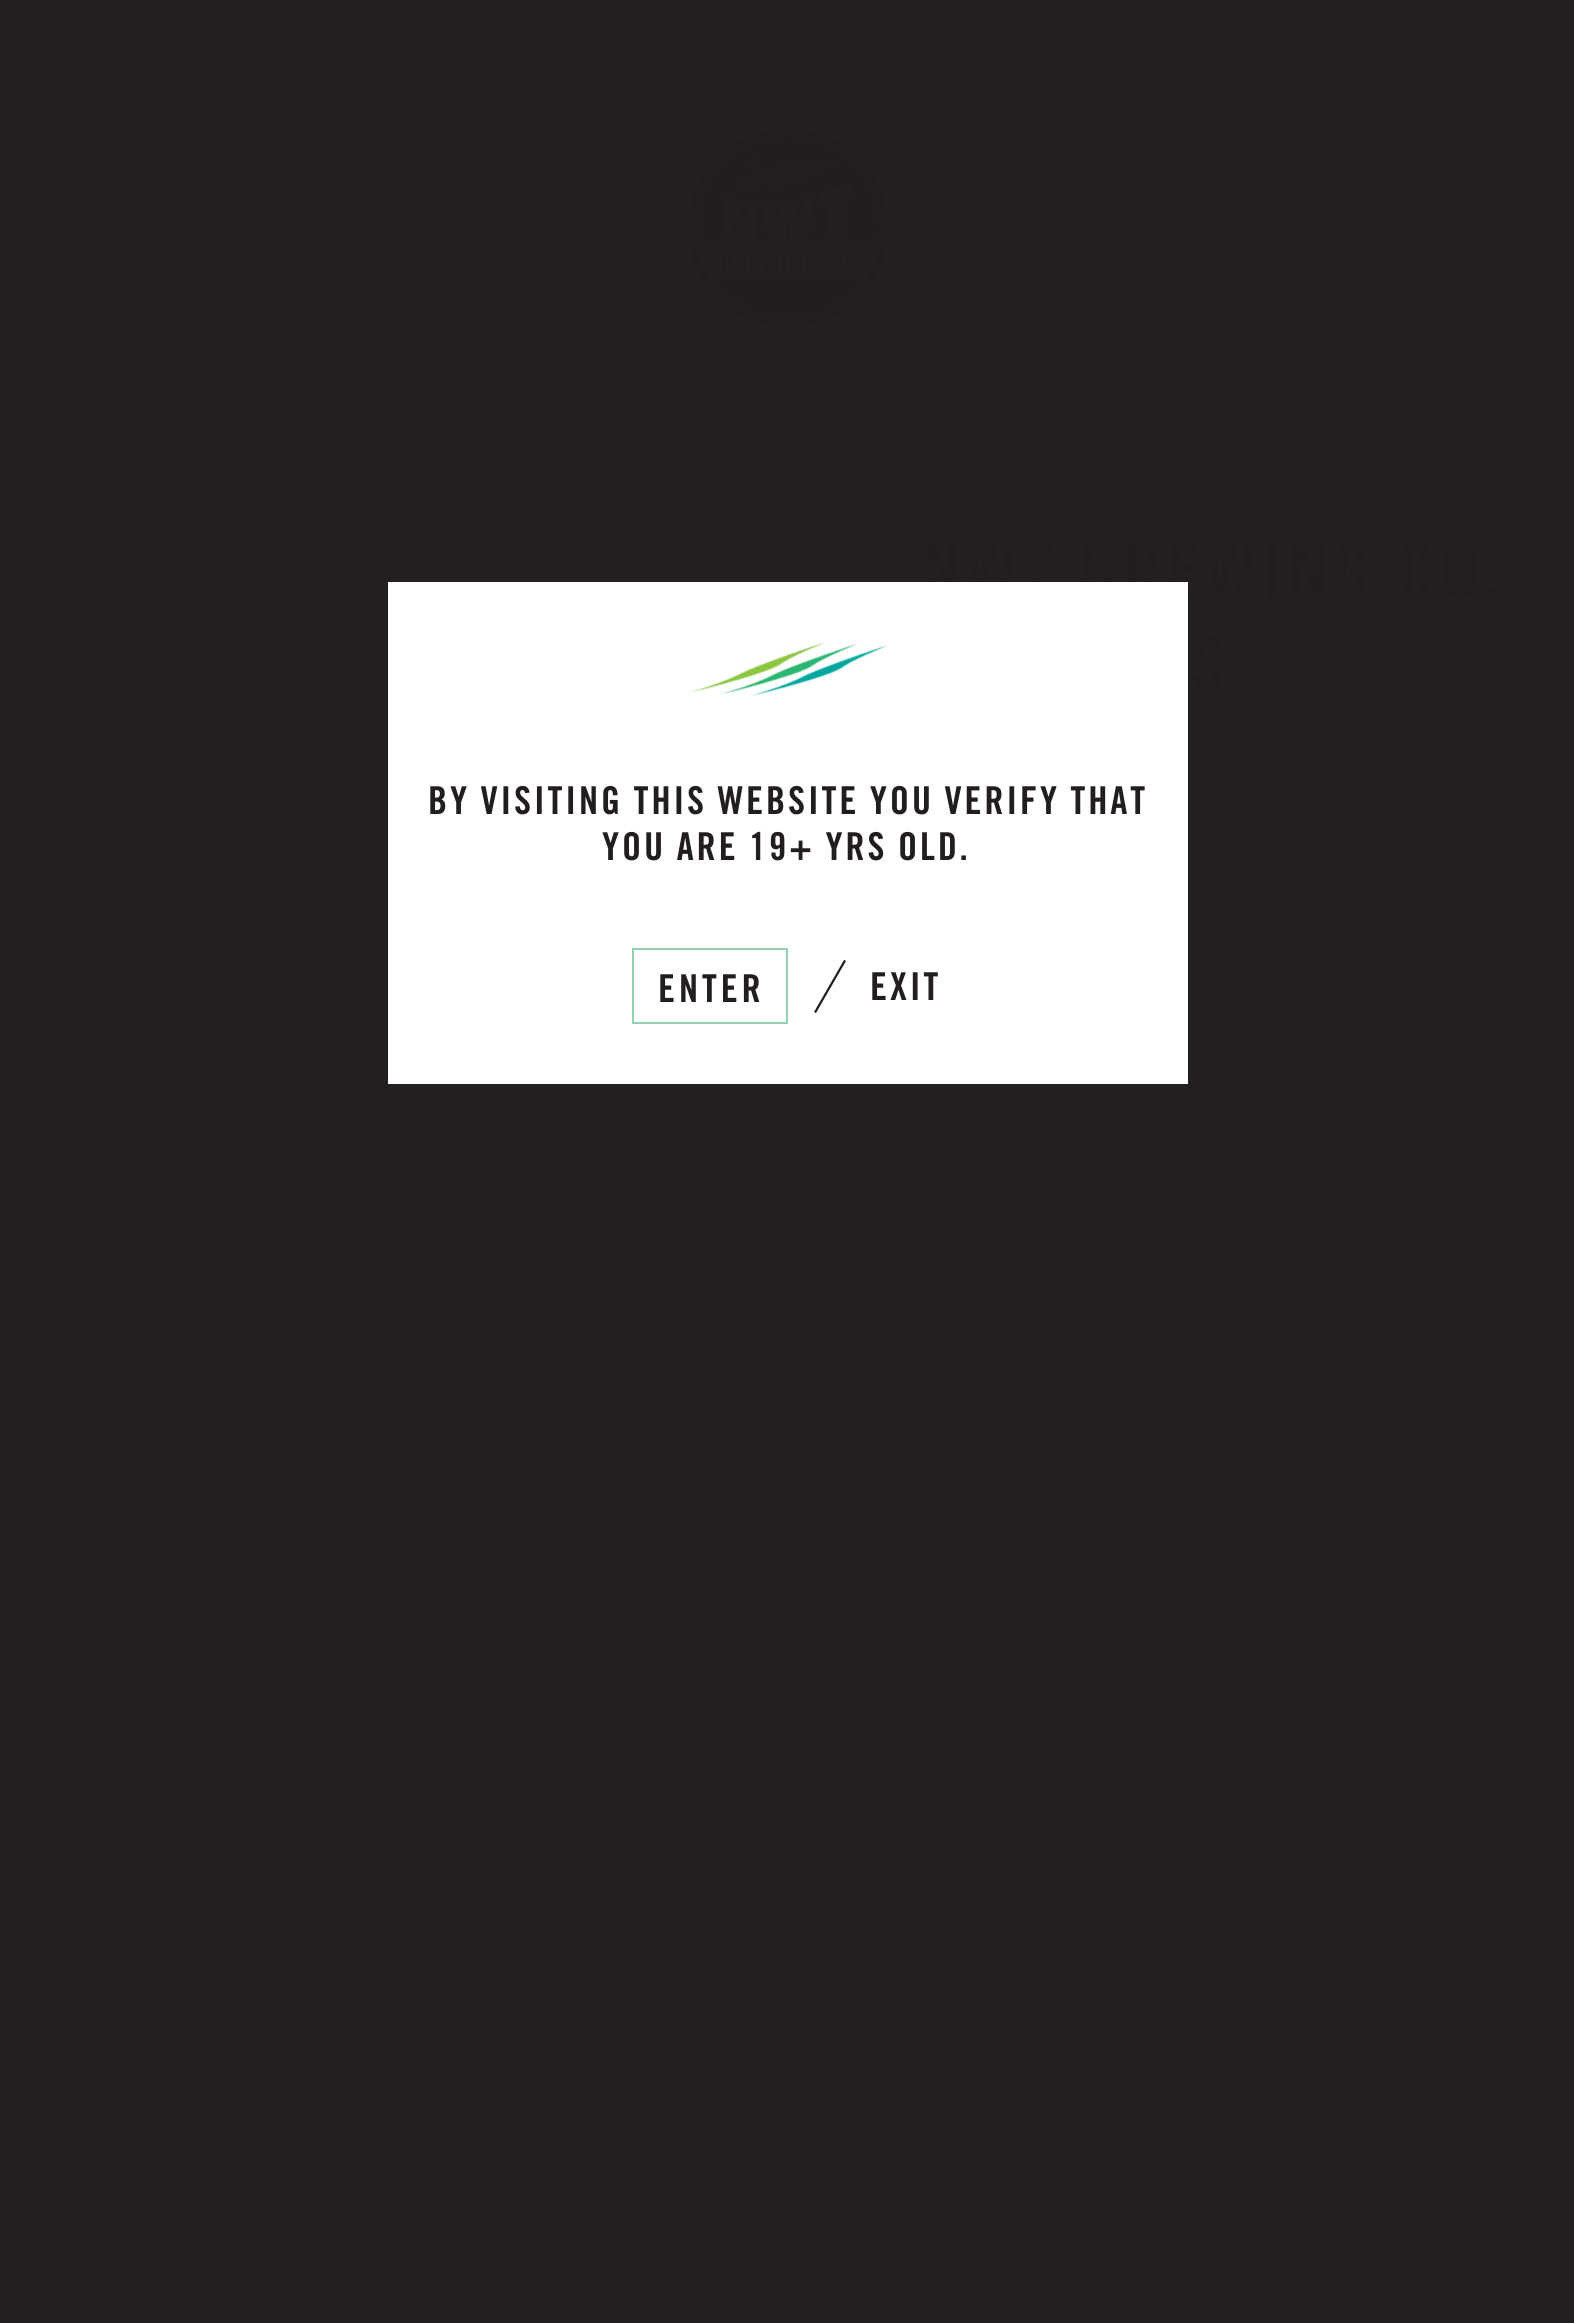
import math
import cairo

surface = cairo.ImageSurface(cairo.FORMAT_RGB24, 1574, 2323)
ctx = cairo.Context(surface)
options = cairo.FontOptions()
options.set_hint_metrics(cairo.HINT_METRICS_OFF)
options.set_hint_style(cairo.HINT_STYLE_NONE)
ctx.set_font_options(options)
ctx.set_miter_limit(4)


def set_color(code):
    ctx.set_source_rgb(*(v / 255 for v in bytes.fromhex(code[-6:])))


def fill_rect(x, y, w, h, color):
    set_color(color)
    ctx.rectangle(x, y, w, h)
    ctx.fill()


def draw_image(path, x, y, w, h):
    ctx.save()
    ctx.set_source_surface(cairo.ImageSurface.create_from_png(path), x, y)
    ctx.rectangle(x, y, w, h)
    ctx.fill()
    ctx.restore()


set_color("#242021")
ctx.paint()
draw_image("assets/img1.png", 469, 28, 631, 32)
draw_image("assets/img2.png", 688, 128, 200, 200)
draw_image("assets/img9.png", 926, 541, 571, 58)
fill_rect(388, 582, 800, 502, "#ffffff")
draw_image("assets/img3.png", 689, 642, 199, 54)
draw_image("assets/img4.png", 430, 785, 715, 30)
draw_image("assets/img5.png", 602, 831, 364, 30)
ctx.rectangle(633, 949, 154, 74)
set_color("#94d0b2")
ctx.stroke()
draw_image("assets/img6.png", 660, 974, 100, 28)
set_color("#221e1f")
ctx.new_path()
ctx.move_to(844, 960)
ctx.line_to(846, 961)
ctx.line_to(816, 1013)
ctx.line_to(814, 1012)
ctx.close_path()
ctx.fill()
draw_image("assets/img7.png", 872, 972, 66, 28)
draw_image("assets/img8.png", 922, 454, 180, 25)
draw_image("assets/img10.png", 1192, 633, 30, 58)
draw_image("assets/img11.png", 1108, 1467, 238, 34)
surface.write_to_png("output.png")
